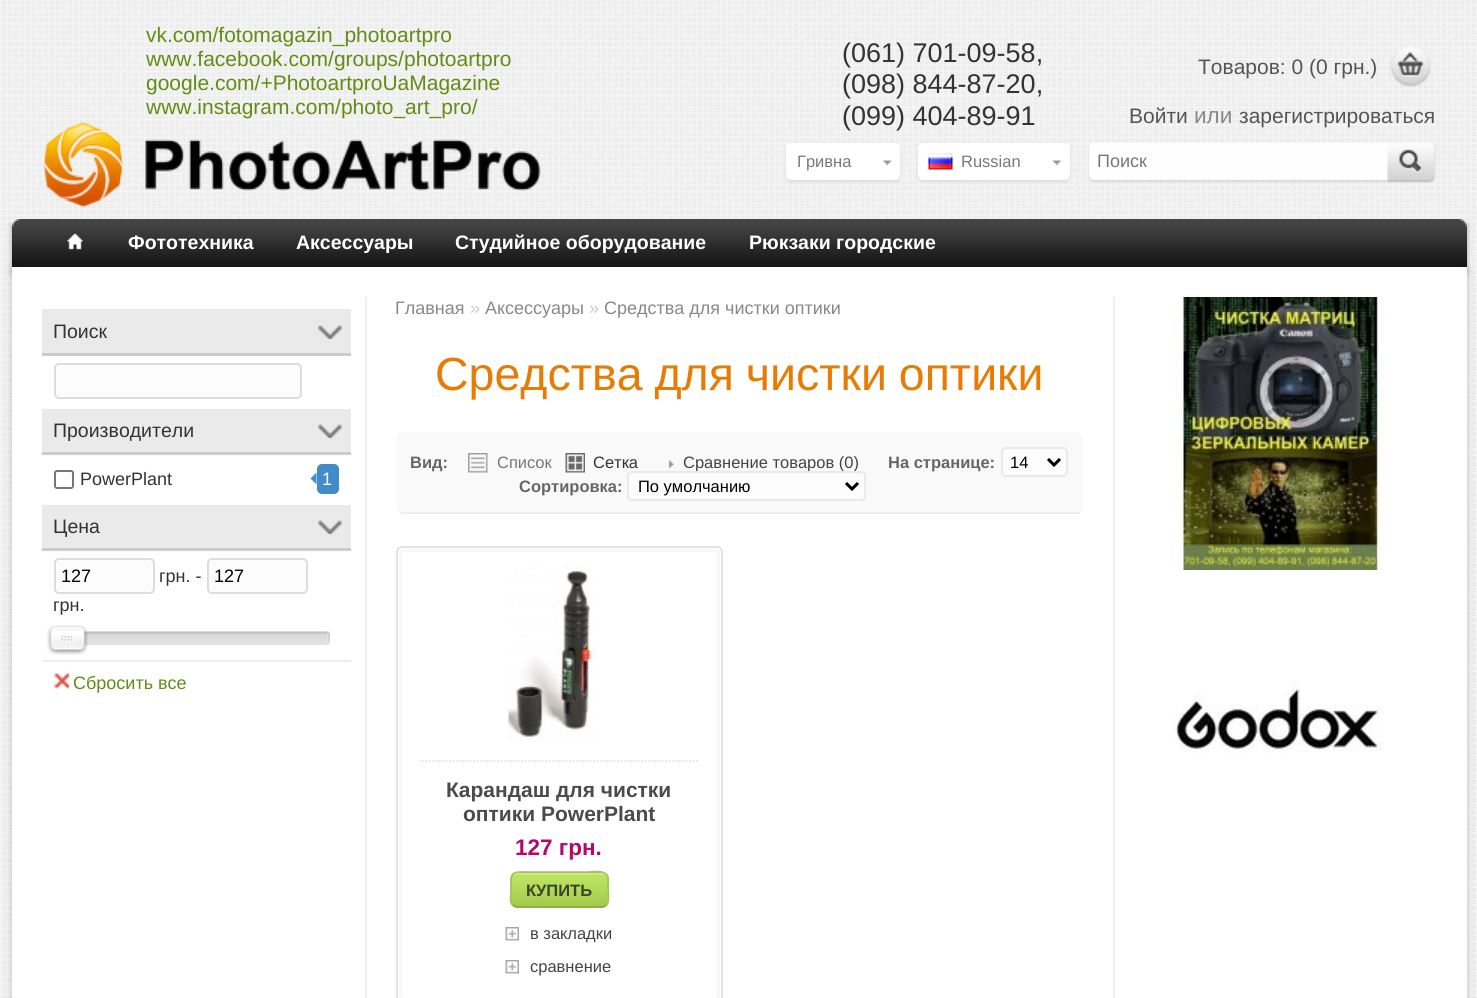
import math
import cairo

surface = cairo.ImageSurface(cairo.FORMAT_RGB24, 1477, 998)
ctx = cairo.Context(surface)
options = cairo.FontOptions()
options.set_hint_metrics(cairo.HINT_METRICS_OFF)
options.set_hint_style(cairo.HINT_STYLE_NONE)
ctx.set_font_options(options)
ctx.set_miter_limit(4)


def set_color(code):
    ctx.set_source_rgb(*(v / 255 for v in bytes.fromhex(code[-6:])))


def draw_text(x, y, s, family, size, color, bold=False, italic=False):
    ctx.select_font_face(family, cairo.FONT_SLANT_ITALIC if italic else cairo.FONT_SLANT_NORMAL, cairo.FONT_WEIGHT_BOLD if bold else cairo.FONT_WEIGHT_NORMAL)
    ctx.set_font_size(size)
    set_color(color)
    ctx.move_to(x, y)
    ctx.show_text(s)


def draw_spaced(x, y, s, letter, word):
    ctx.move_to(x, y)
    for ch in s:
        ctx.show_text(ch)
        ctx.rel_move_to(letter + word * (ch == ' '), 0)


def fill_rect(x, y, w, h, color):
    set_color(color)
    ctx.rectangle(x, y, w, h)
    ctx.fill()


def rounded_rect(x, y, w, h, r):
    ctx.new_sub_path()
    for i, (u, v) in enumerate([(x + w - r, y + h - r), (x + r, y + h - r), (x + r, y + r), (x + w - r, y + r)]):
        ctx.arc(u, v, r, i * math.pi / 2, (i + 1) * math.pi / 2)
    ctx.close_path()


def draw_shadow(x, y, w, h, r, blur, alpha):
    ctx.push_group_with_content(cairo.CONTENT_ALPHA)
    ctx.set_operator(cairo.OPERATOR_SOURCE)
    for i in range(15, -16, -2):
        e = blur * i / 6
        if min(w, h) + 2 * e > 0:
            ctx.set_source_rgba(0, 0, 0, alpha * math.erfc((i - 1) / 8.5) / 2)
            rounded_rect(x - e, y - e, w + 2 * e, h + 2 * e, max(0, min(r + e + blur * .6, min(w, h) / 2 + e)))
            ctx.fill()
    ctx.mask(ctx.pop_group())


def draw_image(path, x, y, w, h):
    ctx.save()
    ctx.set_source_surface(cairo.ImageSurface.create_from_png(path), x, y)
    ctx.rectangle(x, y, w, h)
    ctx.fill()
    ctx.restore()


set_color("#f5f5f5")
ctx.paint()
draw_image("assets/img1.png", 1, 0, 1475, 998)
draw_text(146, 42, "vk.com/fotomagazin_photoartpro", "Liberation Sans", 21, "#638c15")
draw_text(146, 66, "www.facebook.com/groups/photoartpro", "Liberation Sans", 21, "#638c15")
draw_text(146, 90, "google.com/+PhotoartproUaMagazine", "Liberation Sans", 21, "#638c15")
draw_text(146, 114, "www.instagram.com/photo_art_pro/", "Liberation Sans", 21, "#638c15")
draw_text(842, 62, "(061) 701-09-58,", "Liberation Sans", 27, "#333333")
draw_text(842, 93, "(098) 844-87-20,", "Liberation Sans", 27, "#333333")
draw_text(842, 125, "(099) 404-89-91", "Liberation Sans", 27, "#333333")
draw_image("assets/img2.png", 1390, 46, 41, 41)
draw_text(1198, 74, "Товаров: 0 (0 грн.)", "Liberation Sans", 21, "#555555")
draw_text(1129, 123, "Войти", "Liberation Sans", 21, "#555555")
draw_text(1194, 123, "или", "Liberation Sans", 22.5, "#888888")
draw_text(1239, 123, "зарегистрироваться", "Liberation Sans", 21, "#555555")
draw_image("assets/img3.png", 43, 121, 498, 87)
set_color("#dddddd")
draw_shadow(786, 144, 114, 38, 5, 1.5, 1)
set_color("#ffffff")
rounded_rect(786, 143, 114, 37, 5)
ctx.fill()
draw_image("assets/img4.png", 883, 160, 9, 6)
draw_text(797, 167, "Гривна", "Liberation Sans", 16.5, "#777777")
set_color("#dddddd")
draw_shadow(918, 144, 152, 38, 5, 1.5, 1)
set_color("#ffffff")
rounded_rect(918, 143, 152, 37, 5)
ctx.fill()
draw_image("assets/img5.png", 1052, 160, 9, 6)
draw_image("assets/img6.png", 928, 153, 25, 17)
draw_text(961, 167, "Russian", "Liberation Sans", 16.5, "#777777")
draw_image("assets/img7.png", 1088, 142, 301, 41)
draw_text(1097, 167, "Поиск", "Liberation Sans", 18, "#777777")
draw_image("assets/img8.png", 1387, 142, 49, 41)
ctx.save()
ctx.set_fill_rule(cairo.FILL_RULE_EVEN_ODD)
ctx.new_path()
ctx.move_to(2, 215)
ctx.line_to(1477, 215)
ctx.line_to(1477, 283)
ctx.line_to(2, 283)
ctx.close_path()
ctx.move_to(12, 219)
ctx.line_to(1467, 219)
ctx.line_to(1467, 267)
ctx.line_to(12, 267)
ctx.close_path()
ctx.clip()
set_color("#aaaaaa")
draw_shadow(12, 225, 1455, 48, 0, 3, 1)
ctx.restore()
draw_image("assets/img9.png", 12, 219, 1455, 48)
draw_image("assets/img10.png", 67, 233, 16, 17)
draw_text(128, 249, "Фототехника", "Liberation Sans", 19.5, "#ffffff", bold=True)
draw_text(296, 249, "Аксессуары", "Liberation Sans", 19.5, "#ffffff", bold=True)
draw_text(455, 249, "Студийное оборудование", "Liberation Sans", 19.5, "#ffffff", bold=True)
draw_text(749, 249, "Рюкзаки городские", "Liberation Sans", 19.5, "#ffffff", bold=True)
set_color("#000000")
draw_shadow(12, 270, 1455, 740, 0, 4, 0.2)
fill_rect(12, 267, 1455, 731, "#ffffff")
fill_rect(42, 309, 309, 44, "#eaeaea")
draw_text(53, 338, "Поиск", "Liberation Sans", 19.5, "#333333")
draw_image("assets/img11.png", 318, 325, 25, 14)
fill_rect(42, 353, 309, 3, "#cccccc")
set_color("#fcfcfc")
rounded_rect(55, 364, 246, 34, 4)
ctx.fill_preserve()
set_color("#dddddd")
ctx.stroke()
fill_rect(42, 409, 309, 43, "#eaeaea")
draw_text(53, 437, "Производители", "Liberation Sans", 19.5, "#333333")
draw_image("assets/img11.png", 318, 424, 25, 14)
fill_rect(42, 452, 309, 3, "#cccccc")
rounded_rect(55, 471, 18, 17, 2)
set_color("#767676")
ctx.stroke()
draw_text(80, 485, "PowerPlant", "Liberation Sans", 18, "#333333")
set_color("#428bca")
rounded_rect(317, 464, 22, 30, 5)
ctx.fill()
ctx.new_path()
ctx.move_to(316.5, 472.5)
ctx.line_to(316.5, 484.5)
ctx.line_to(310.5, 478.5)
ctx.close_path()
ctx.fill()
draw_text(322, 485, "1", "Liberation Sans", 18, "#ffffff")
fill_rect(42, 505, 309, 43, "#eaeaea")
draw_text(53, 533, "Цена", "Liberation Sans", 19.5, "#333333")
draw_image("assets/img11.png", 318, 520, 25, 14)
fill_rect(42, 548, 309, 3, "#cccccc")
set_color("#fcfcfc")
rounded_rect(55, 559, 99, 34, 4)
ctx.fill_preserve()
set_color("#dddddd")
ctx.stroke()
draw_text(61, 582, "127", "Liberation Sans", 18, "#000000")
draw_text(159, 582, "грн. -", "Liberation Sans", 18, "#333333")
set_color("#fcfcfc")
rounded_rect(208, 559, 99, 34, 4)
ctx.fill_preserve()
set_color("#dddddd")
ctx.stroke()
draw_text(214, 582, "127", "Liberation Sans", 18, "#000000")
draw_text(53, 611, "грн.", "Liberation Sans", 18, "#333333")
draw_image("assets/img12.png", 326, 631, 4, 14)
draw_image("assets/img13.png", 82, 631, 245, 14)
draw_image("assets/img14.png", 47, 625, 41, 30)
draw_image("assets/img15.png", 47, 625, 41, 30)
fill_rect(42, 660, 309, 2, "#eeeeee")
draw_image("assets/img16.png", 54, 673, 15, 16)
draw_text(73, 689, "Сбросить все", "Liberation Sans", 18, "#638c15")
fill_rect(1113, 297, 2, 701, "#eeeeee")
fill_rect(365, 297, 2, 701, "#eeeeee")
draw_text(395, 314, "Главная", "Liberation Sans", 18, "#888888")
draw_text(470, 314, "»", "Liberation Sans", 18, "#cccccc")
draw_text(485, 314, "Аксессуары", "Liberation Sans", 18, "#888888")
draw_text(589, 314, "»", "Liberation Sans", 18, "#cccccc")
draw_text(604, 314, "Средства для чистки оптики", "Liberation Sans", 18, "#888888")
ctx.set_font_size(46.5)
set_color("#e77b03")
draw_spaced(435, 390, "Средства для чистки оптики", 0, -1)
set_color("#f9f9f9")
rounded_rect(396, 432, 687, 81, 8)
ctx.fill()
fill_rect(401, 512, 679, 2, "#eeeeee")
draw_text(410, 468, "Вид:", "Liberation Sans", 16.5, "#666666", bold=True)
draw_image("assets/img17.png", 468, 453, 20, 20)
draw_text(497, 468, "Список", "Liberation Sans", 16.5, "#777777")
draw_image("assets/img18.png", 565, 453, 20, 20)
draw_text(593, 468, "Сетка", "Liberation Sans", 16.5, "#333333")
draw_image("assets/img19.png", 668, 460, 6, 9)
draw_text(683, 468, "Сравнение товаров (0)", "Liberation Sans", 16.5, "#444444")
draw_text(888, 468, "На странице:", "Liberation Sans", 16.5, "#666666", bold=True)
set_color("#fcfcfc")
rounded_rect(1002, 448, 65, 28, 4)
ctx.fill_preserve()
set_color("#e9e9e9")
ctx.stroke()
ctx.new_path()
ctx.move_to(1048, 459)
ctx.line_to(1054, 465)
ctx.line_to(1060, 459)
set_color("#000000")
ctx.set_line_width(3)
ctx.stroke()
draw_text(1010, 468, "14", "Liberation Sans", 16.5, "#000000")
draw_text(519, 492, "Сортировка:", "Liberation Sans", 16.5, "#666666", bold=True)
set_color("#fcfcfc")
rounded_rect(628, 472, 237, 28, 4)
ctx.fill_preserve()
set_color("#e9e9e9")
ctx.set_line_width(2)
ctx.stroke()
ctx.new_path()
ctx.move_to(846, 483)
ctx.line_to(852, 489)
ctx.line_to(858, 483)
set_color("#000000")
ctx.set_line_width(3)
ctx.stroke()
draw_text(638, 492, "По умолчанию", "Liberation Sans", 16.5, "#000000")
rounded_rect(397, 547, 325, 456, 5)
set_color("#e2e2e2")
ctx.set_line_width(2)
ctx.stroke()
rounded_rect(400.5, 550.5, 318, 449, 3.5)
set_color("#f8f8f8")
ctx.set_line_width(3)
ctx.stroke()
draw_image("assets/img20.png", 506, 564, 92, 177)
ctx.new_path()
ctx.move_to(420, 761)
ctx.line_to(699, 761)
set_color("#dddddd")
ctx.set_line_width(1.5)
ctx.set_dash([1.5, 1.5])
ctx.stroke()
draw_text(446, 797, "Карандаш для чистки", "Liberation Sans", 21, "#4b4b4b", bold=True)
draw_text(463, 821, "оптики PowerPlant", "Liberation Sans", 21, "#4b4b4b", bold=True)
draw_text(515, 855, "127 грн.", "Liberation Sans", 22.5, "#b6066c", bold=True)
set_color("#9cc445")
rounded_rect(510, 872, 99, 36, 8)
ctx.fill()
draw_image("assets/img21.png", 510, 873, 99, 35)
ctx.new_path()
ctx.move_to(606.5, 905)
ctx.curve_to(605, 906, 603.5, 907, 601.5, 907)
ctx.line_to(517.5, 907)
ctx.curve_to(515.5, 907, 514, 906, 512.5, 905)
set_color("#87a645")
ctx.set_dash([])
ctx.stroke()
ctx.new_path()
ctx.move_to(512.5, 905)
ctx.curve_to(509, 901.5, 511, 894, 511, 889.5)
ctx.curve_to(511, 870, 511, 872, 531.5, 872)
ctx.line_to(587.5, 872)
ctx.curve_to(592, 872, 606.5, 869, 608, 877.5)
ctx.line_to(608, 886)
ctx.curve_to(608, 890.5, 610, 901, 606.5, 905)
set_color("#a2c359")
ctx.stroke()
draw_text(526, 896, "КУПИТЬ", "Liberation Sans", 16.5, "#3b4429", bold=True)
draw_image("assets/img22.png", 505, 927, 14, 14)
draw_text(530, 939, "в закладки", "Liberation Sans", 16.5, "#444444")
draw_image("assets/img22.png", 505, 960, 14, 14)
draw_text(530, 972, "сравнение", "Liberation Sans", 16.5, "#444444")
draw_image("assets/img23.png", 1169, 297, 216, 273)
draw_image("assets/img24.png", 1172, 682, 212, 71)
surface.write_to_png("output.png")
